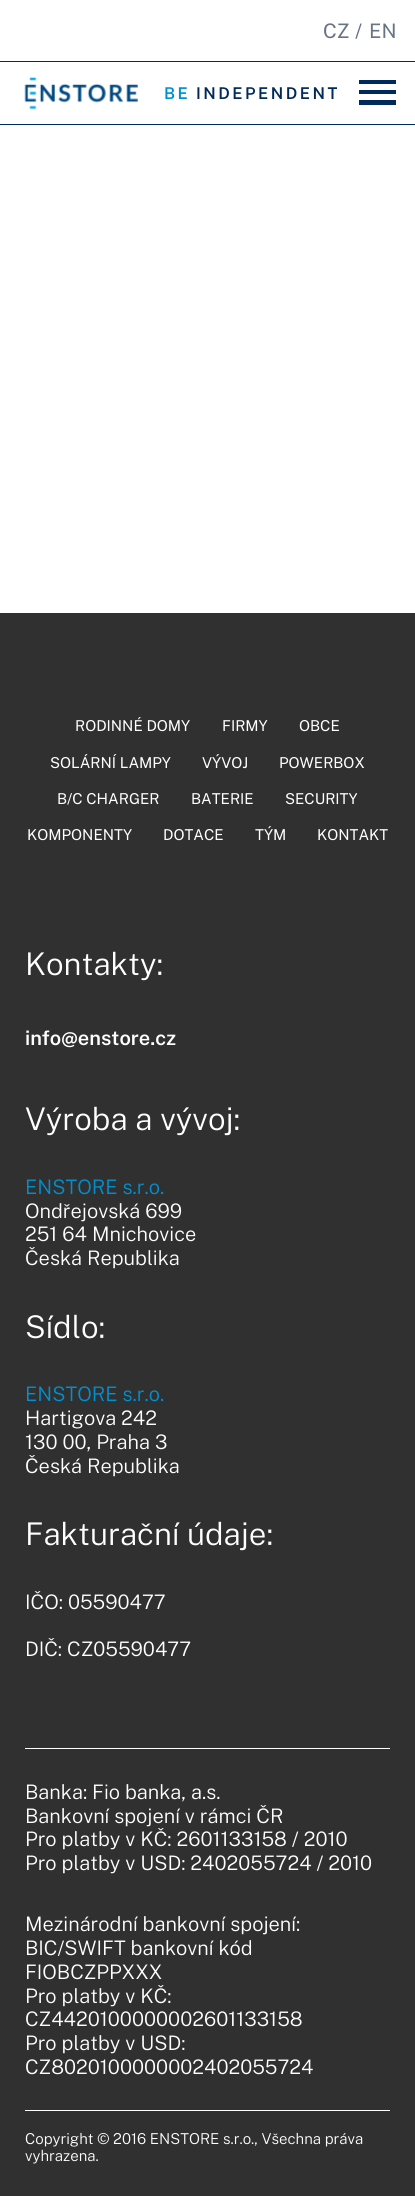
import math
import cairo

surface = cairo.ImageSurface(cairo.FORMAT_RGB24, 415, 2196)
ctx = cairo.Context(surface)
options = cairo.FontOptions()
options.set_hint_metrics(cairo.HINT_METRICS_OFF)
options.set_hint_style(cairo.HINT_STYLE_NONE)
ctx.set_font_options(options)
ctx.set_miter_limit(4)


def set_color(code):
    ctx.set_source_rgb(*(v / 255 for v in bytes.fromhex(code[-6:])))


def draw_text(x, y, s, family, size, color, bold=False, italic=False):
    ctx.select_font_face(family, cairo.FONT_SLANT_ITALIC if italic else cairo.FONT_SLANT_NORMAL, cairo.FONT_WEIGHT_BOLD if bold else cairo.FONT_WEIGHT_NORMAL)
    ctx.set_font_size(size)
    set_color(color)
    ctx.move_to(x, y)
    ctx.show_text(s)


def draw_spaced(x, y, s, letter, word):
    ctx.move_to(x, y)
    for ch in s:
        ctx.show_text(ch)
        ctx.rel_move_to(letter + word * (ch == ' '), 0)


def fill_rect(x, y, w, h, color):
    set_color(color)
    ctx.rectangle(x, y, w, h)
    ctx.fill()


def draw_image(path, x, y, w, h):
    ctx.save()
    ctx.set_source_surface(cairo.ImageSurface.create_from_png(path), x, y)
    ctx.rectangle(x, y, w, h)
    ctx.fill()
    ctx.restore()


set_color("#ffffff")
ctx.paint()
draw_text(323, 38, "CZ", "Public Sans", 20, "#677487")
draw_text(355, 38, "/", "Public Sans", 20, "#677487")
draw_text(369, 38, "EN", "Public Sans", 20, "#677487")
fill_rect(0, 61, 415, 1, "#002a5b")
fill_rect(0, 124, 415, 1, "#002a5b")
draw_image("assets/img1.png", 24, 77, 114, 33)
ctx.select_font_face("Public Sans SemiBold")
ctx.set_font_size(16.25)
set_color("#0090d2")
draw_spaced(164, 99, "BE", 2.5, 0)
set_color("#002a5b")
draw_spaced(196, 99, "INDEPENDENT", 2.5, 0)
fill_rect(359, 80, 37, 4, "#002a5b")
fill_rect(359, 90, 37, 4, "#002a5b")
fill_rect(359, 100, 37, 5, "#002a5b")
fill_rect(0, 613, 415, 1583, "#303030")
draw_text(75, 731, "RODINNÉ DOMY", "Public Sans", 15, "#ffffff")
draw_text(222, 731, "FIRMY", "Public Sans", 15, "#ffffff")
draw_text(299, 731, "OBCE", "Public Sans", 15, "#ffffff")
draw_text(50, 768, "SOLÁRNÍ LAMPY", "Public Sans", 15, "#ffffff")
draw_text(202, 768, "VÝVOJ", "Public Sans", 15, "#ffffff")
draw_text(279, 768, "POWERBOX", "Public Sans", 15, "#ffffff")
draw_text(57, 804, "B/C CHARGER", "Public Sans", 15, "#ffffff")
draw_text(191, 804, "BATERIE", "Public Sans", 15, "#ffffff")
draw_text(285, 804, "SECURITY", "Public Sans", 15, "#ffffff")
draw_text(27, 840, "KOMPONENTY", "Public Sans", 15, "#ffffff")
draw_text(163, 840, "DOTACE", "Public Sans", 15, "#ffffff")
draw_text(255, 840, "TÝM", "Public Sans", 15, "#ffffff")
draw_text(317, 840, "KONTAKT", "Public Sans", 15, "#ffffff")
draw_text(25, 975, "Kontakty:", "Public Sans Light", 31.25, "#ffffff")
draw_text(25, 1045, "info@enstore.cz", "Public Sans SemiBold", 20, "#ffffff")
draw_text(25, 1130, "Výroba a vývoj:", "Public Sans Light", 31.25, "#ffffff")
draw_text(25, 1194, "ENSTORE s.r.o.", "Public Sans Light", 20, "#0090d2")
draw_text(25, 1218, "Ondřejovská 699", "Public Sans Light", 20, "#ffffff")
draw_text(25, 1241, "251 64 Mnichovice", "Public Sans Light", 20, "#ffffff")
draw_text(25, 1265, "Česká Republika", "Public Sans Light", 20, "#ffffff")
draw_text(25, 1338, "Sídlo:", "Public Sans Light", 31.25, "#ffffff")
draw_text(25, 1401, "ENSTORE s.r.o.", "Public Sans Light", 20, "#0090d2")
draw_text(25, 1425, "Hartigova 242", "Public Sans Light", 20, "#ffffff")
draw_text(25, 1449, "130 00, Praha 3", "Public Sans Light", 20, "#ffffff")
draw_text(25, 1473, "Česká Republika", "Public Sans Light", 20, "#ffffff")
draw_text(25, 1545, "Fakturační údaje:", "Public Sans Light", 31.25, "#ffffff")
draw_text(25, 1609, "IČO: 05590477", "Public Sans Light", 20, "#ffffff")
draw_text(25, 1656, "DIČ: CZ05590477", "Public Sans Light", 20, "#ffffff")
fill_rect(25, 1748, 365, 1, "#ffffff")
fill_rect(25, 2110, 365, 1, "#ffffff")
draw_text(25, 1799, "Banka: Fio banka, a.s.", "Public Sans Light", 20, "#ffffff")
draw_text(25, 1823, "Bankovní spojení v rámci ČR", "Public Sans Light", 20, "#ffffff")
draw_text(25, 1846, "Pro platby v KČ: 2601133158 / 2010", "Public Sans Light", 20, "#ffffff")
draw_text(25, 1870, "Pro platby v USD: 2402055724 / 2010", "Public Sans Light", 20, "#ffffff")
draw_text(25, 1931, "Mezinárodní bankovní spojení:", "Public Sans Light", 20, "#ffffff")
draw_text(25, 1955, "BIC/SWIFT bankovní kód", "Public Sans Light", 20, "#ffffff")
draw_text(25, 1979, "FIOBCZPPXXX", "Public Sans Light", 20, "#ffffff")
draw_text(25, 2003, "Pro platby v KČ:", "Public Sans Light", 20, "#ffffff")
draw_text(25, 2026, "CZ4420100000002601133158", "Public Sans Light", 20, "#ffffff")
draw_text(25, 2050, "Pro platby v USD:", "Public Sans Light", 20, "#ffffff")
draw_text(25, 2074, "CZ8020100000002402055724", "Public Sans Light", 20, "#ffffff")
draw_text(25, 2144, "Copyright © 2016 ENSTORE s.r.o., Všechna práva", "Public Sans Light", 15, "#ffffff")
draw_text(25, 2161, "vyhrazena.", "Public Sans Light", 15, "#ffffff")
surface.write_to_png("output.png")
